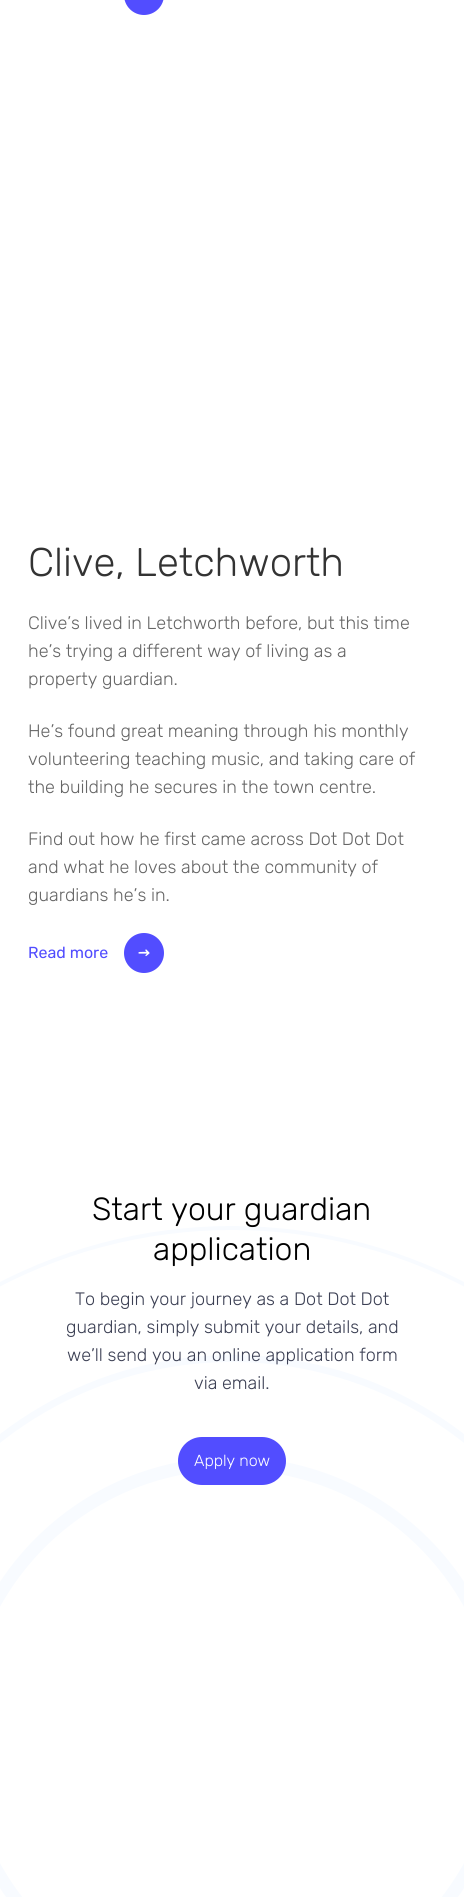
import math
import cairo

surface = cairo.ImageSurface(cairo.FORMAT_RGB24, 464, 1897)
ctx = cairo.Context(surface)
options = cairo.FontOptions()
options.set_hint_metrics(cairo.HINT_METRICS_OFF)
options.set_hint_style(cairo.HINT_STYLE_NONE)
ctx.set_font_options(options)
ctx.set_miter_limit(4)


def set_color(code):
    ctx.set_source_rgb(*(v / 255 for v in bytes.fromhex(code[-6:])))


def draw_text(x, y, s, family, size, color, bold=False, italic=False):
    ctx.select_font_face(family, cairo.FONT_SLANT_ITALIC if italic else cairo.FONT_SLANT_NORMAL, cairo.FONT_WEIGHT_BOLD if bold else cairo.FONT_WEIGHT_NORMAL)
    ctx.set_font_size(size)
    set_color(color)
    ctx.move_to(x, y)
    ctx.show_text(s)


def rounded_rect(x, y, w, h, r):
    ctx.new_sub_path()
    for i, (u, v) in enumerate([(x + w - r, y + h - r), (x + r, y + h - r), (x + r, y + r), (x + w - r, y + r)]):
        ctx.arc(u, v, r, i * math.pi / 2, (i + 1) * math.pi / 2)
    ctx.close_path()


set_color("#ffffff")
ctx.paint()
set_color("#524dff")
ctx.arc(144, -5, 20, 0, 2 * math.pi)
ctx.fill()
draw_text(28, 576, "Clive, Letchworth", "Rubik Light", 40, "#333333")
draw_text(28, 629, "Clive’s lived in Letchworth before, but this time", "Rubik Light", 18, "#666666")
draw_text(28, 657, "he’s trying a different way of living as a", "Rubik Light", 18, "#666666")
draw_text(28, 685, "property guardian.", "Rubik Light", 18, "#666666")
draw_text(28, 737, "He’s found great meaning through his monthly", "Rubik Light", 18, "#666666")
draw_text(28, 765, "volunteering teaching music, and taking care of", "Rubik Light", 18, "#666666")
draw_text(28, 793, "the building he secures in the town centre.", "Rubik Light", 18, "#666666")
draw_text(28, 845, "Find out how he first came across Dot Dot Dot", "Rubik Light", 18, "#666666")
draw_text(28, 873, "and what he loves about the community of", "Rubik Light", 18, "#666666")
draw_text(28, 901, "guardians he’s in.", "Rubik Light", 18, "#666666")
draw_text(28, 958, "Read more", "Rubik", 16, "#524dff")
ctx.new_path()
ctx.arc(144, 953, 20, 0, 2 * math.pi)
ctx.fill()
ctx.new_path()
ctx.move_to(146, 955.5)
ctx.line_to(149, 953)
ctx.line_to(146, 950)
ctx.line_to(146, 950.5)
ctx.line_to(148, 952.5)
ctx.line_to(142, 952.5)
ctx.curve_to(141, 952.5, 138.5, 952.5, 139, 953)
ctx.line_to(148.5, 953)
ctx.close_path()
set_color("#ffffff")
ctx.set_line_width(1.2)
ctx.set_line_cap(cairo.LINE_CAP_ROUND)
ctx.set_line_join(cairo.LINE_JOIN_ROUND)
ctx.stroke()
ctx.arc(232, 1735, 507, 0, 2 * math.pi)
set_color("#f8fbff")
ctx.set_line_width(4)
ctx.set_line_cap(cairo.LINE_CAP_BUTT)
ctx.set_line_join(cairo.LINE_JOIN_MITER)
ctx.stroke()
draw_text(92, 1220, "Start your guardian", "Rubik Light", 32, "#000000")
draw_text(153, 1260, "application", "Rubik Light", 32, "#000000")
draw_text(75, 1305, "To begin your journey as a Dot Dot Dot", "Rubik Light", 18, "#3c4054")
draw_text(66, 1333, "guardian, simply submit your details, and", "Rubik Light", 18, "#3c4054")
ctx.new_path()
ctx.arc(232, 1735, 376.5, 0, 2 * math.pi)
set_color("#f8fbff")
ctx.set_line_width(7)
ctx.stroke()
draw_text(67, 1361, "we’ll send you an online application form", "Rubik Light", 18, "#3c4054")
draw_text(194, 1389, "via email.", "Rubik Light", 18, "#3c4054")
ctx.new_path()
ctx.arc(232, 1735, 271.5, 0, 2 * math.pi)
set_color("#f8fbff")
ctx.set_line_width(13)
ctx.stroke()
set_color("#524dff")
rounded_rect(178, 1437, 108, 48, 24)
ctx.fill()
draw_text(194, 1466, "Apply now", "Rubik Light", 16, "#ffffff")
surface.write_to_png("output.png")
